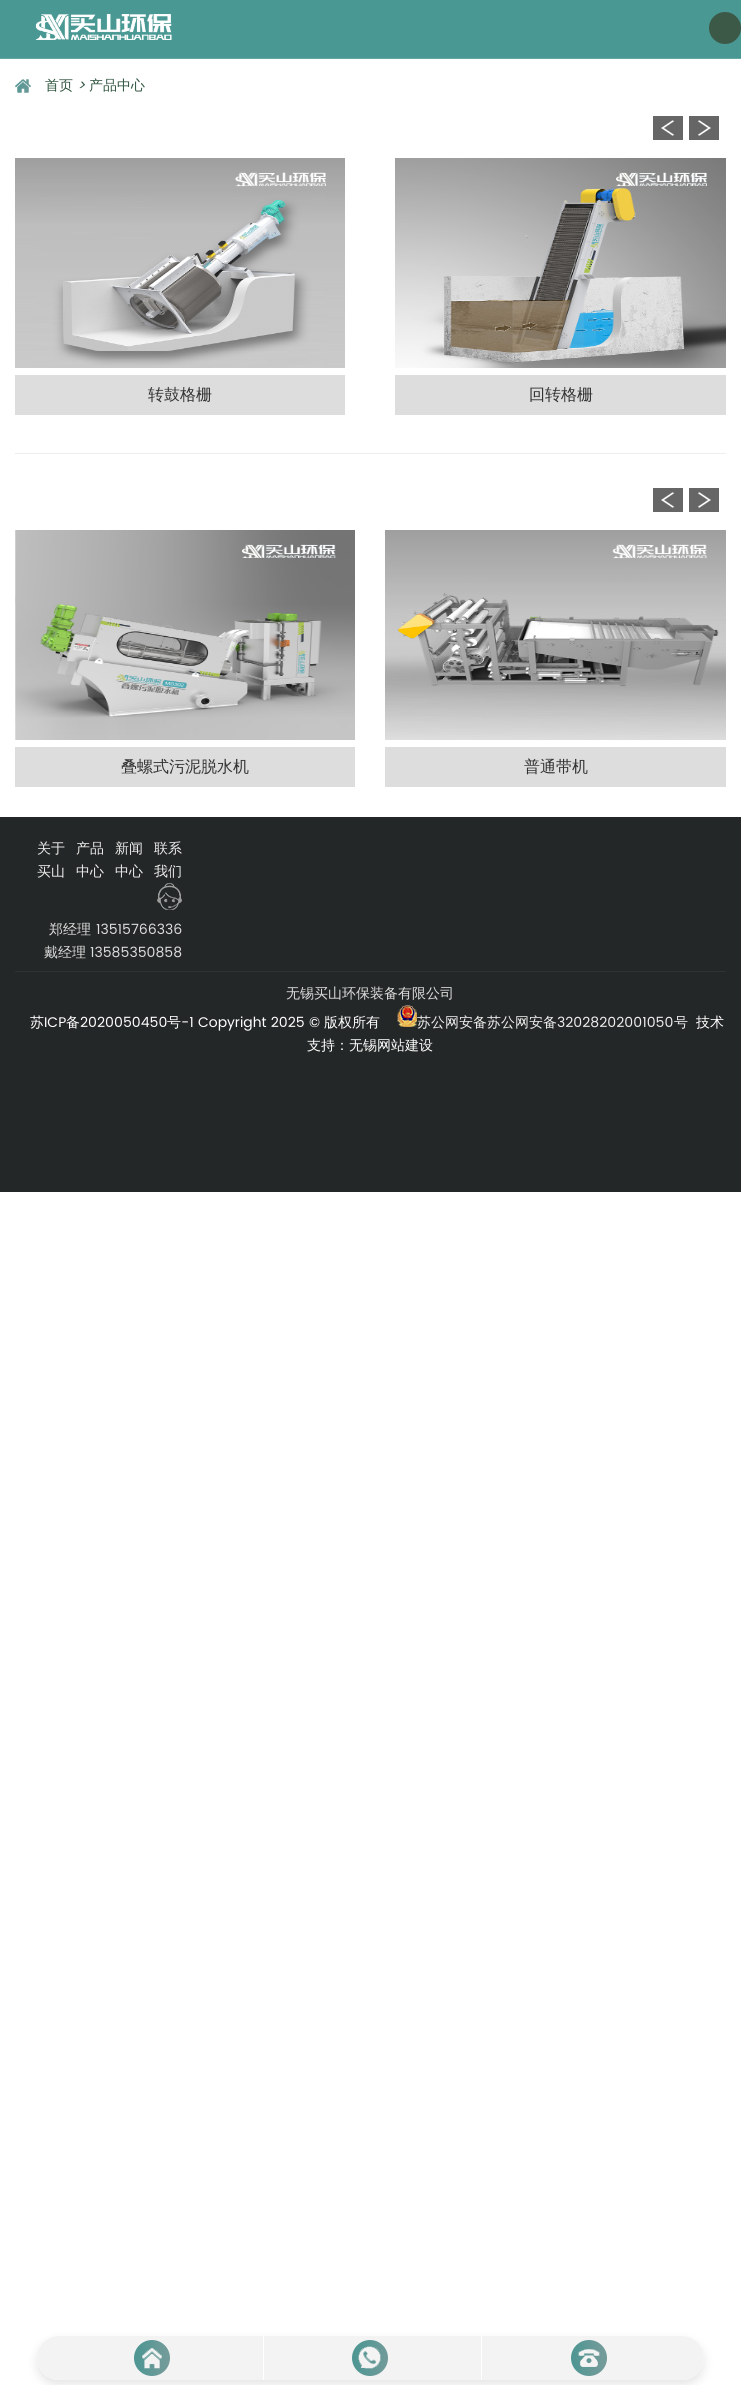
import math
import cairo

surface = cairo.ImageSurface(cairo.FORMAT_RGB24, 741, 2385)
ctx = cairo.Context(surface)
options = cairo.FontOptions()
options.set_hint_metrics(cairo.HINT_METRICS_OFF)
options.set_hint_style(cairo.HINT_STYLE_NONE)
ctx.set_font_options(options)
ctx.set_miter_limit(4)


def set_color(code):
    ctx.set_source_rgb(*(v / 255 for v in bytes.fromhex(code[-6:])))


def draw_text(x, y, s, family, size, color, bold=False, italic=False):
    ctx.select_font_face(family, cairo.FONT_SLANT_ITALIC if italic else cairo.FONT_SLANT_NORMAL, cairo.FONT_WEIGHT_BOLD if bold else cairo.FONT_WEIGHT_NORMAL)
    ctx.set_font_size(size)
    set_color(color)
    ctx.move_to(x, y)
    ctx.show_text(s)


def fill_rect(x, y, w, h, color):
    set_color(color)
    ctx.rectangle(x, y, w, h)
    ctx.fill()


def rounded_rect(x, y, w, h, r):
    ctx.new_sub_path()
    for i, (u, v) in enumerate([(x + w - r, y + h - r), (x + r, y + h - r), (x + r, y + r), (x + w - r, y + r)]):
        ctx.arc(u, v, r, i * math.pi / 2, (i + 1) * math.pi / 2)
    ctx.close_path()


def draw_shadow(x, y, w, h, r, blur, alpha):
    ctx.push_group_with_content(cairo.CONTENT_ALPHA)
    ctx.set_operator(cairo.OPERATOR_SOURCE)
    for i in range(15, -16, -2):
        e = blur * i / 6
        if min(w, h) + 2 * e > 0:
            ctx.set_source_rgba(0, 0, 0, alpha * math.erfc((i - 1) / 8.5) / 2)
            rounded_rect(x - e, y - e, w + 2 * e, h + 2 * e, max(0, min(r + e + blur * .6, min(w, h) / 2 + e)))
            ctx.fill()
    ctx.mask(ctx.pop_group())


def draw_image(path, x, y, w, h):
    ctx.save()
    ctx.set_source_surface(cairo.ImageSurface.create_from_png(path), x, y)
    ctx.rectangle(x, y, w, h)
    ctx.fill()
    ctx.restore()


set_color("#ffffff")
ctx.paint()
fill_rect(0, 0, 741, 58, "#499893")
fill_rect(0, 58, 741, 1, "#64a7a3")
draw_image("assets/img1.png", 35, 14, 137, 26)
set_color("#3c5947")
ctx.arc(725, 28, 16, 0, 2 * math.pi)
ctx.fill()
draw_image("assets/img2.png", 15, 79, 16, 14)
draw_text(45, 90, "首页", "WenQuanYi Zen Hei Medium", 14, "#2e533d")
draw_text(77, 90, ">", "Poppins", 14, "#2e533d", italic=True)
draw_text(89, 90, "产品中心", "WenQuanYi Zen Hei Medium", 14, "#2e533d")
draw_image("assets/img3.png", 653, 116, 30, 24)
draw_image("assets/img4.png", 689, 116, 30, 24)
draw_image("assets/img5.png", 15, 158, 330, 210)
fill_rect(15, 375, 330, 40, "#dddddd")
draw_text(148, 400, "转鼓格栅", "WenQuanYi Zen Hei Medium", 16, "#333333")
draw_image("assets/img6.png", 395, 158, 331, 210)
fill_rect(395, 375, 331, 40, "#dddddd")
draw_text(529, 400, "回转格栅", "WenQuanYi Zen Hei Medium", 16, "#333333")
fill_rect(15, 453, 711, 1, "#eeeeee")
draw_image("assets/img3.png", 653, 488, 30, 24)
draw_image("assets/img4.png", 689, 488, 30, 24)
draw_image("assets/img7.png", 15, 530, 340, 210)
fill_rect(15, 747, 340, 40, "#dddddd")
draw_text(121, 772, "叠螺式污泥脱水机", "WenQuanYi Zen Hei Medium", 16, "#333333")
draw_image("assets/img8.png", 385, 530, 341, 210)
fill_rect(385, 747, 341, 40, "#dddddd")
draw_text(524, 772, "普通带机", "WenQuanYi Zen Hei Medium", 16, "#333333")
fill_rect(0, 817, 741, 375, "#242727")
draw_text(37, 853, "关于", "WenQuanYi Zen Hei Medium", 14, "#eeeeee")
draw_text(37, 876, "买山", "WenQuanYi Zen Hei Medium", 14, "#eeeeee")
draw_text(76, 853, "产品", "WenQuanYi Zen Hei Medium", 14, "#eeeeee")
draw_text(76, 876, "中心", "WenQuanYi Zen Hei Medium", 14, "#eeeeee")
draw_text(115, 853, "新闻", "WenQuanYi Zen Hei Medium", 14, "#eeeeee")
draw_text(115, 876, "中心", "WenQuanYi Zen Hei Medium", 14, "#eeeeee")
draw_text(154, 853, "联系", "WenQuanYi Zen Hei Medium", 14, "#eeeeee")
draw_text(154, 876, "我们", "WenQuanYi Zen Hei Medium", 14, "#eeeeee")
draw_image("assets/img9.png", 157, 883, 25, 27)
draw_text(49, 934, "郑经理", "WenQuanYi Zen Hei Medium", 14, "#dddddd")
draw_text(96, 934, "13515766336", "Poppins", 14, "#dddddd")
draw_text(44, 957, "戴经理", "WenQuanYi Zen Hei Medium", 14, "#dddddd")
draw_text(90, 957, "13585350858", "Poppins", 14, "#dddddd")
fill_rect(15, 971, 711, 1, "#303133")
draw_text(286, 998, "无锡买山环保装备有限公司", "WenQuanYi Zen Hei Medium", 14, "#dddddd")
draw_text(30, 1027, "苏", "WenQuanYi Zen Hei Medium", 14, "#ffffff")
draw_text(44, 1027, "ICP", "Poppins", 14, "#ffffff")
draw_text(66, 1027, "备", "WenQuanYi Zen Hei Medium", 14, "#ffffff")
draw_text(80, 1027, "2020050450", "Poppins", 14, "#ffffff")
draw_text(167, 1027, "号", "WenQuanYi Zen Hei Medium", 14, "#ffffff")
draw_text(181, 1027, "-1 Copyright 2025 ©", "Poppins", 14, "#ffffff")
draw_text(324, 1027, "版权所有", "WenQuanYi Zen Hei Medium", 14, "#ffffff")
draw_image("assets/img10.png", 397, 1005, 20, 22)
draw_text(417, 1027, "苏公网安备苏公网安备", "WenQuanYi Zen Hei Medium", 14, "#eeeeee")
draw_text(557, 1027, "32028202001050", "Poppins", 14, "#eeeeee")
draw_text(674, 1027, "号", "WenQuanYi Zen Hei Medium", 14, "#eeeeee")
draw_text(696, 1027, "技术", "WenQuanYi Zen Hei Medium", 14, "#ffffff")
draw_text(307, 1050, "支持：无锡网站建设", "WenQuanYi Zen Hei Medium", 14, "#ffffff")
ctx.save()
ctx.set_fill_rule(cairo.FILL_RULE_EVEN_ODD)
ctx.new_path()
ctx.move_to(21, 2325)
ctx.line_to(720, 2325)
ctx.line_to(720, 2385)
ctx.line_to(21, 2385)
ctx.close_path()
ctx.move_to(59, 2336)
ctx.line_to(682, 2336)
ctx.curve_to(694, 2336, 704, 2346, 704, 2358)
ctx.curve_to(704, 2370, 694, 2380, 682, 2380)
ctx.line_to(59, 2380)
ctx.curve_to(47, 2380, 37, 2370, 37, 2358)
ctx.curve_to(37, 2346, 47, 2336, 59, 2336)
ctx.close_path()
ctx.clip()
set_color("#000000")
draw_shadow(37, 2341, 667, 44, 22, 5, 0.1)
ctx.restore()
ctx.set_source_rgba(0.953, 0.953, 0.953, 0.95)
rounded_rect(37, 2336, 667, 44, 22)
ctx.fill()
draw_image("assets/img11.png", 134, 2340, 36, 36)
fill_rect(263, 2336, 1, 44, "#ffffff")
draw_image("assets/img12.png", 352, 2340, 36, 36)
fill_rect(481, 2336, 1, 44, "#ffffff")
draw_image("assets/img13.png", 571, 2340, 36, 36)
surface.write_to_png("output.png")
